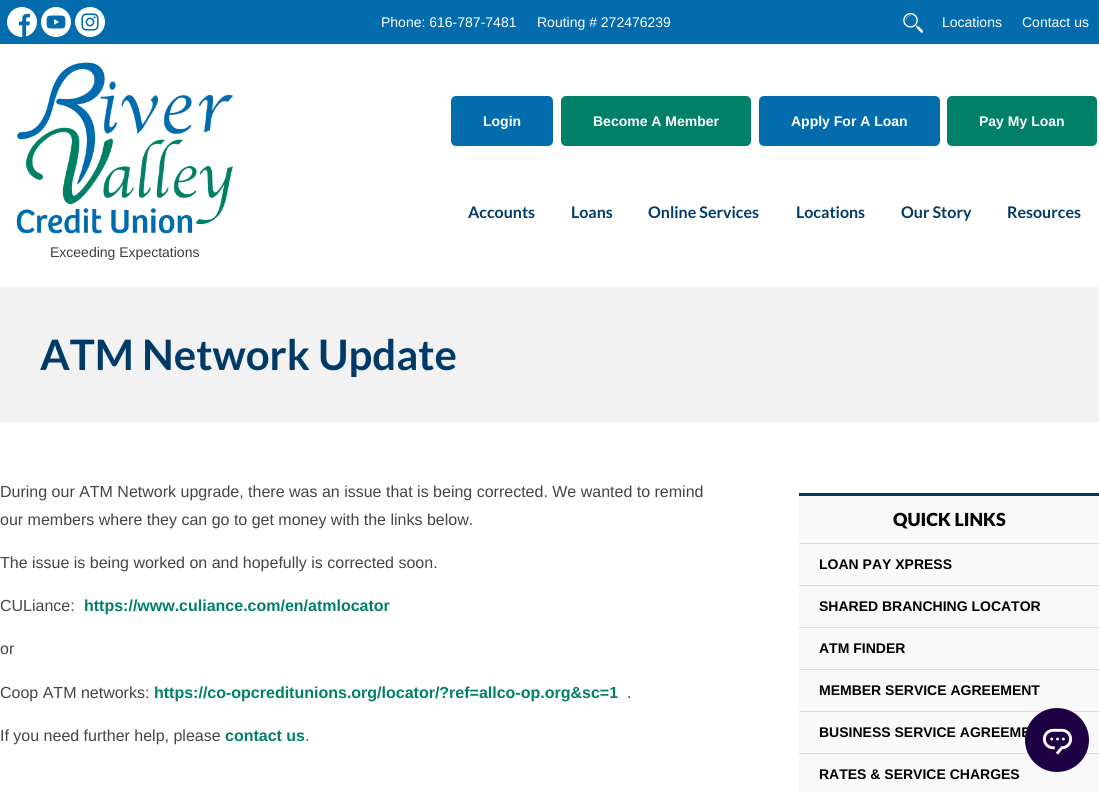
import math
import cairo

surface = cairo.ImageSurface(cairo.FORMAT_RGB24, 1099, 792)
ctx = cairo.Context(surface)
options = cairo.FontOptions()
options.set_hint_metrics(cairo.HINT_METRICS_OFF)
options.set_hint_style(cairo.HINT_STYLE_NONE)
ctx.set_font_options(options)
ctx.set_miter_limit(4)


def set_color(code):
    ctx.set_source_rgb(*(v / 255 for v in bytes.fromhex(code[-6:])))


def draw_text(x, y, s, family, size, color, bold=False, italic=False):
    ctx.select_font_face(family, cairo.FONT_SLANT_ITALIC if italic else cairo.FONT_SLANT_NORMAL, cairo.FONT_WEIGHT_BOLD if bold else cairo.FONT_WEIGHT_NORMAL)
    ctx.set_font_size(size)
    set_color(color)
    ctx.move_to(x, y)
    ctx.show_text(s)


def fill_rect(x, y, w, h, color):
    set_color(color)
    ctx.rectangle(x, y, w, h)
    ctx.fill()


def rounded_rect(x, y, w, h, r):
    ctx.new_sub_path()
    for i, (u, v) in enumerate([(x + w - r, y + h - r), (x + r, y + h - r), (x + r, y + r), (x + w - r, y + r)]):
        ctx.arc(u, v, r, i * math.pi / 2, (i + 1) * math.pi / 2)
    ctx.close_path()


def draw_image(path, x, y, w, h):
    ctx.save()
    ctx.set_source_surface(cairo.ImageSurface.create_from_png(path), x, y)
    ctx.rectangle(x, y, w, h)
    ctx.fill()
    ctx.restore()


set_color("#ffffff")
ctx.paint()
fill_rect(0, 0, 1099, 44, "#036cad")
draw_image("assets/img1.png", 7, 7, 30, 30)
draw_image("assets/img2.png", 41, 7, 30, 30)
draw_image("assets/img3.png", 75, 7, 30, 30)
draw_text(381, 27, "Phone: 616-787-7481", "Liberation Sans", 14, "#ffffff")
draw_text(537, 27, "Routing # 272476239", "Liberation Sans", 14, "#ffffff")
draw_image("assets/img4.png", 903, 13, 20, 20)
draw_text(942, 27, "Locations", "Liberation Sans", 14, "#ffffff")
draw_text(1022, 27, "Contact us", "Liberation Sans", 14, "#ffffff")
set_color("#036cad")
rounded_rect(451, 96, 102, 50, 5)
ctx.fill()
draw_text(483, 126, "Login", "Liberation Sans", 14, "#ffffff", bold=True)
set_color("#008066")
rounded_rect(561, 96, 190, 50, 5)
ctx.fill()
draw_text(593, 126, "Become A Member", "Liberation Sans", 14, "#ffffff", bold=True)
set_color("#036cad")
rounded_rect(759, 96, 181, 50, 5)
ctx.fill()
draw_text(791, 126, "Apply For A Loan", "Liberation Sans", 14, "#ffffff", bold=True)
set_color("#008066")
rounded_rect(947, 96, 150, 50, 5)
ctx.fill()
draw_text(979, 126, "Pay My Loan", "Liberation Sans", 14, "#ffffff", bold=True)
draw_text(468, 218, "Accounts", "Lato", 16, "#003b68", bold=True)
draw_text(571, 218, "Loans", "Lato", 16, "#003b68", bold=True)
draw_text(648, 218, "Online Services", "Lato", 16, "#003b68", bold=True)
draw_text(796, 218, "Locations", "Lato", 16, "#003b68", bold=True)
draw_text(901, 218, "Our Story", "Lato", 16, "#003b68", bold=True)
draw_text(1007, 218, "Resources", "Lato", 16, "#003b68", bold=True)
draw_image("assets/img5.png", 16, 62, 217, 172)
draw_text(50, 257, "Exceeding Expectations", "Liberation Sans", 14, "#3d3d3d")
fill_rect(0, 287, 1099, 135, "#f2f2f2")
draw_text(40, 370, "ATM Network Update", "Lato", 42, "#003b68", bold=True)
draw_text(0, 497, "During our ATM Network upgrade, there was an issue that is being corrected. We wanted to remind", "Liberation Sans", 16, "#444444")
draw_text(0, 525, "our members where they can go to get money with the links below.", "Liberation Sans", 16, "#444444")
draw_text(0, 568, "The issue is being worked on and hopefully is corrected soon.", "Liberation Sans", 16, "#444444")
draw_text(0, 611, "CULiance:", "Liberation Sans", 16, "#444444")
draw_text(84, 611, "https://www.culiance.com/en/atmlocator", "Liberation Sans", 16, "#008066", bold=True)
draw_text(0, 654, "or", "Liberation Sans", 16, "#444444")
draw_text(0, 698, "Coop ATM networks:", "Liberation Sans", 16, "#444444")
draw_text(154, 698, "https://co-opcreditunions.org/locator/?ref=allco-op.org&sc=1", "Liberation Sans", 16, "#008066", bold=True)
draw_text(627, 698, ".", "Liberation Sans", 16, "#444444")
draw_text(0, 741, "If you need further help, please", "Liberation Sans", 16, "#444444")
draw_text(225, 741, "contact us", "Liberation Sans", 16, "#008066", bold=True)
draw_text(305, 741, ".", "Liberation Sans", 16, "#444444")
fill_rect(799, 496, 300, 296, "#f9f9f9")
fill_rect(799, 493, 300, 3, "#003b68")
draw_text(893, 526, "QUICK LINKS", "Lato Black", 18, "#000000")
fill_rect(799, 543, 300, 1, "#dddddd")
draw_text(819, 569, "LOAN PAY XPRESS", "Liberation Sans", 14, "#000000", bold=True)
fill_rect(799, 585, 300, 1, "#dddddd")
draw_text(819, 611, "SHARED BRANCHING LOCATOR", "Liberation Sans", 14, "#000000", bold=True)
fill_rect(799, 627, 300, 1, "#dddddd")
draw_text(819, 653, "ATM FINDER", "Liberation Sans", 14, "#000000", bold=True)
fill_rect(799, 669, 300, 1, "#dddddd")
draw_text(819, 695, "MEMBER SERVICE AGREEMENT", "Liberation Sans", 14, "#000000", bold=True)
fill_rect(799, 711, 300, 1, "#dddddd")
draw_text(819, 737, "BUSINESS SERVICE AGREEME", "Liberation Sans", 14, "#000000", bold=True)
fill_rect(799, 753, 300, 1, "#dddddd")
draw_text(819, 779, "RATES & SERVICE CHARGES", "Liberation Sans", 14, "#000000", bold=True)
set_color("#1e0044")
ctx.new_path()
ctx.arc(1057, 740, 32, 0, 2 * math.pi)
ctx.fill()
draw_image("assets/img6.png", 1042, 728, 31, 27)
surface.write_to_png("output.png")
